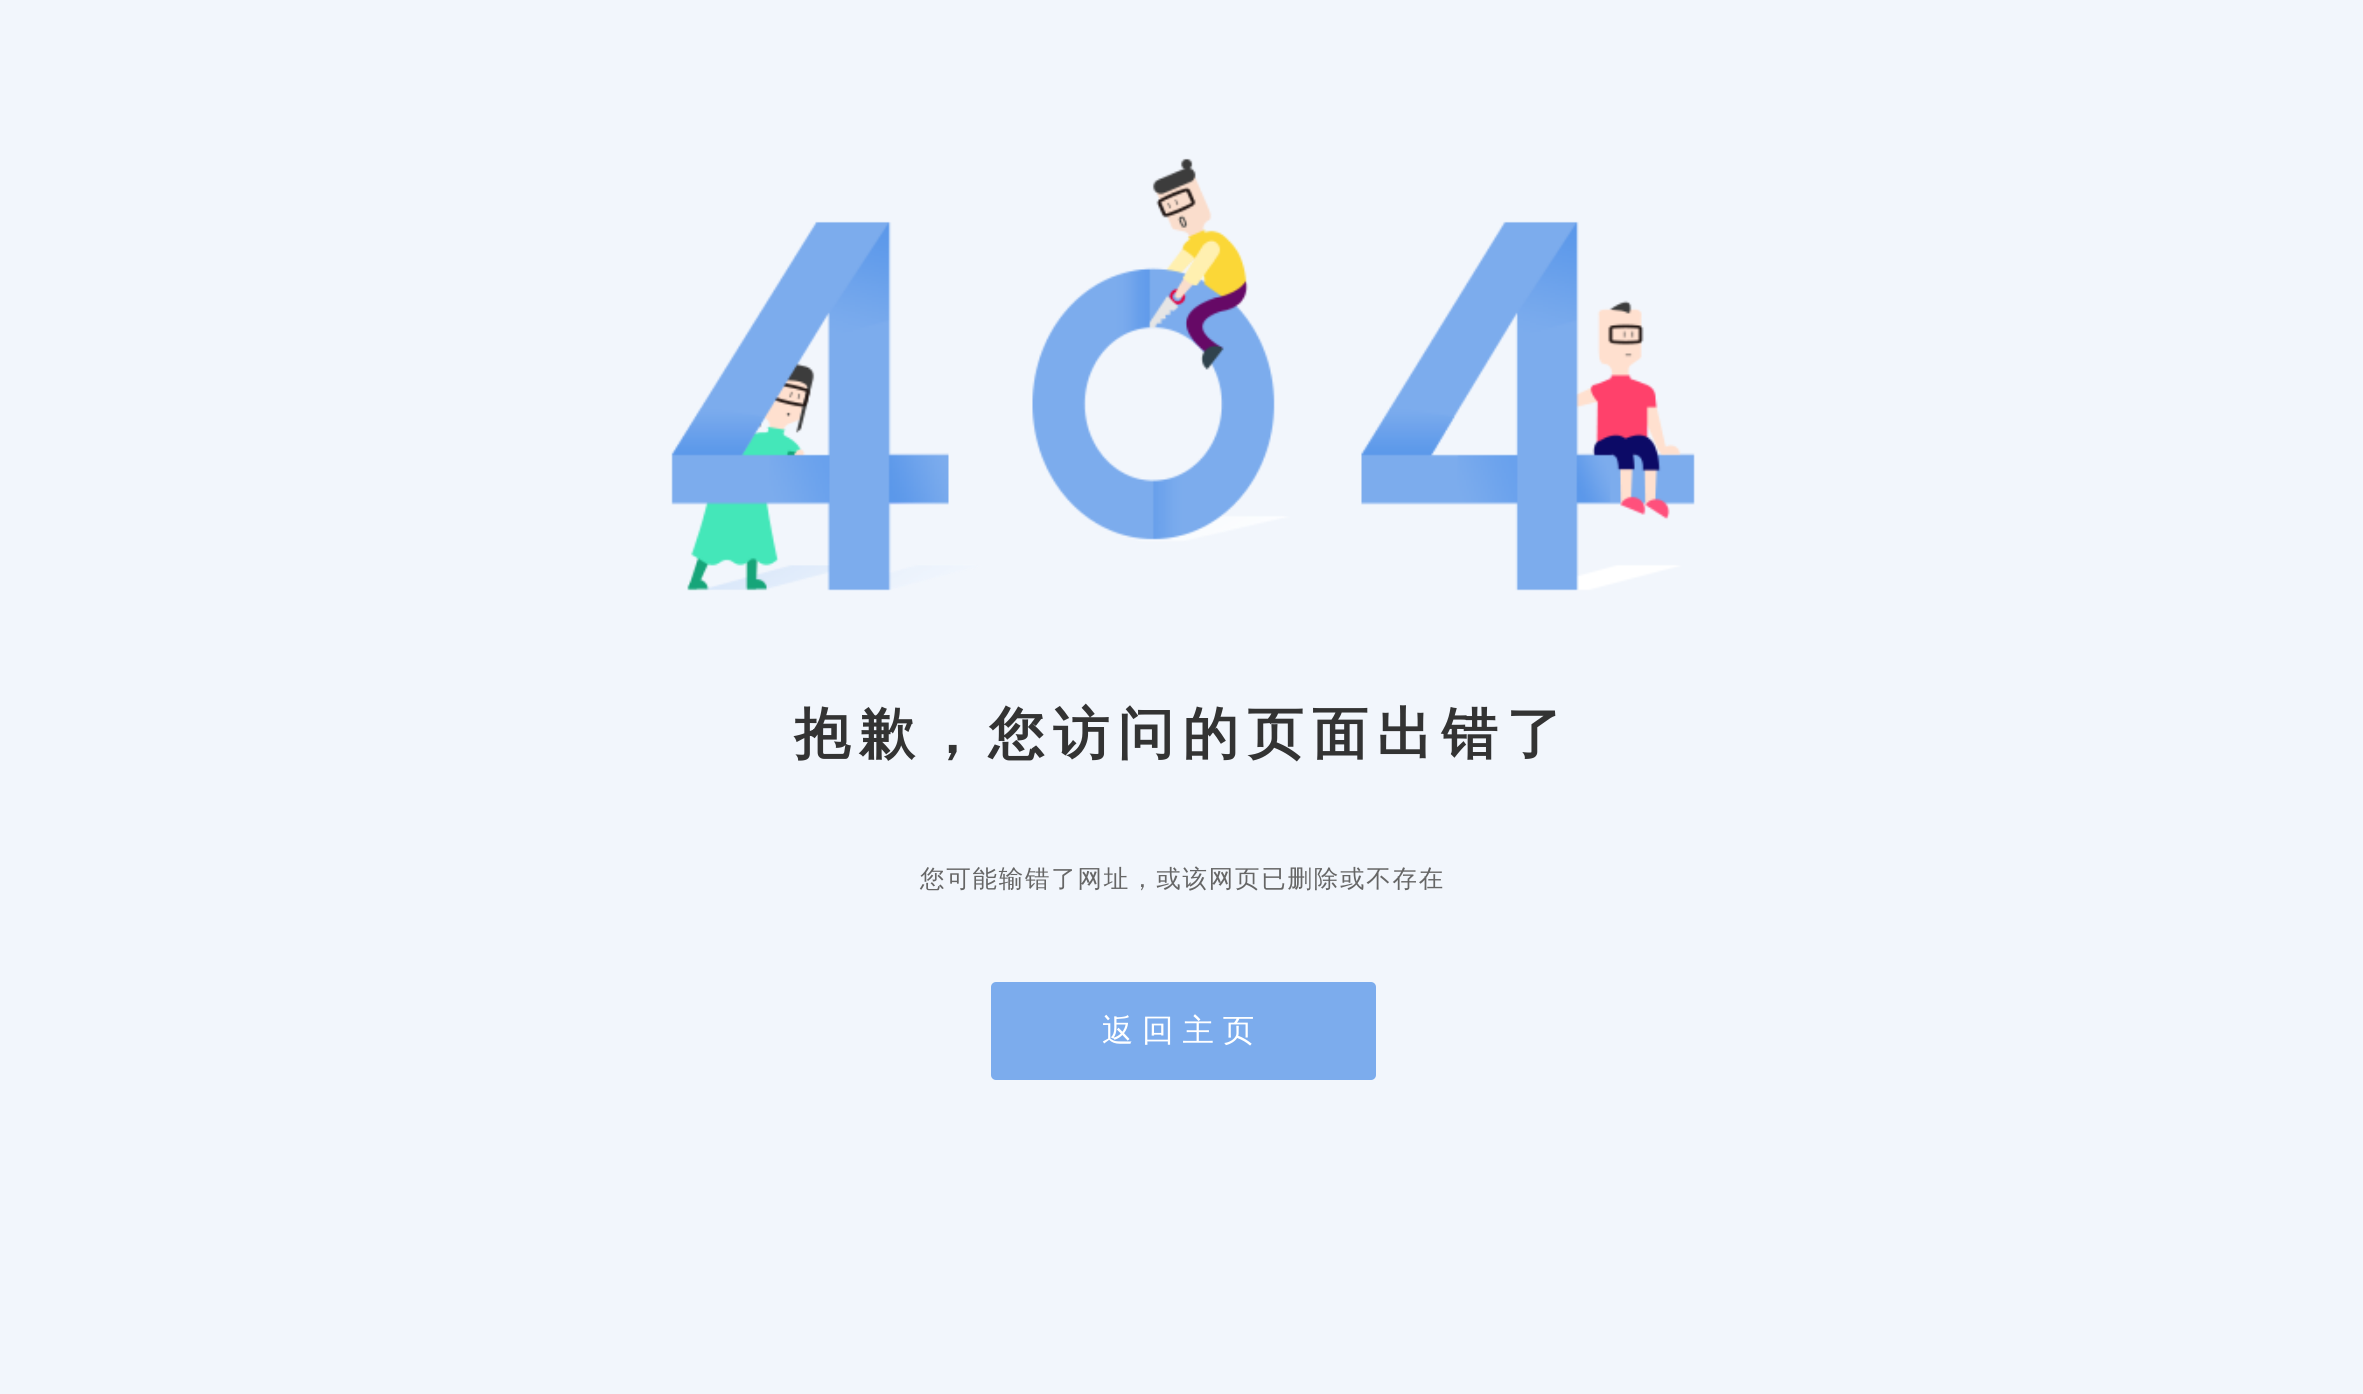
import math
import cairo

surface = cairo.ImageSurface(cairo.FORMAT_RGB24, 2363, 1394)
ctx = cairo.Context(surface)
options = cairo.FontOptions()
options.set_hint_metrics(cairo.HINT_METRICS_OFF)
options.set_hint_style(cairo.HINT_STYLE_NONE)
ctx.set_font_options(options)
ctx.set_miter_limit(4)


def set_color(code):
    ctx.set_source_rgb(*(v / 255 for v in bytes.fromhex(code[-6:])))


def draw_spaced(x, y, s, letter, word):
    ctx.move_to(x, y)
    for ch in s:
        ctx.show_text(ch)
        ctx.rel_move_to(letter + word * (ch == ' '), 0)


def rounded_rect(x, y, w, h, r):
    ctx.new_sub_path()
    for i, (u, v) in enumerate([(x + w - r, y + h - r), (x + r, y + h - r), (x + r, y + r), (x + w - r, y + r)]):
        ctx.arc(u, v, r, i * math.pi / 2, (i + 1) * math.pi / 2)
    ctx.close_path()


def draw_image(path, x, y, w, h):
    ctx.save()
    ctx.set_source_surface(cairo.ImageSurface.create_from_png(path), x, y)
    ctx.rectangle(x, y, w, h)
    ctx.fill()
    ctx.restore()


set_color("#f2f6fc")
ctx.paint()
draw_image("assets/img1.png", 671, 158, 1024, 433)
ctx.select_font_face("WenQuanYi Zen Hei", cairo.FONT_SLANT_NORMAL, cairo.FONT_WEIGHT_BOLD)
ctx.set_font_size(56)
set_color("#333333")
draw_spaced(794, 753, "抱歉，您访问的页面出错了", 8.75, 0)
ctx.select_font_face("WenQuanYi Zen Hei Medium")
ctx.set_font_size(24.5)
set_color("#666666")
draw_spaced(920, 887, "您可能输错了网址，或该网页已删除或不存在", 1.75, 0)
set_color("#7caced")
rounded_rect(991, 982, 385, 98, 5)
ctx.fill()
ctx.set_font_size(31.5)
set_color("#ffffff")
draw_spaced(1102, 1041, "返回主页", 8.75, 0)
surface.write_to_png("output.png")
